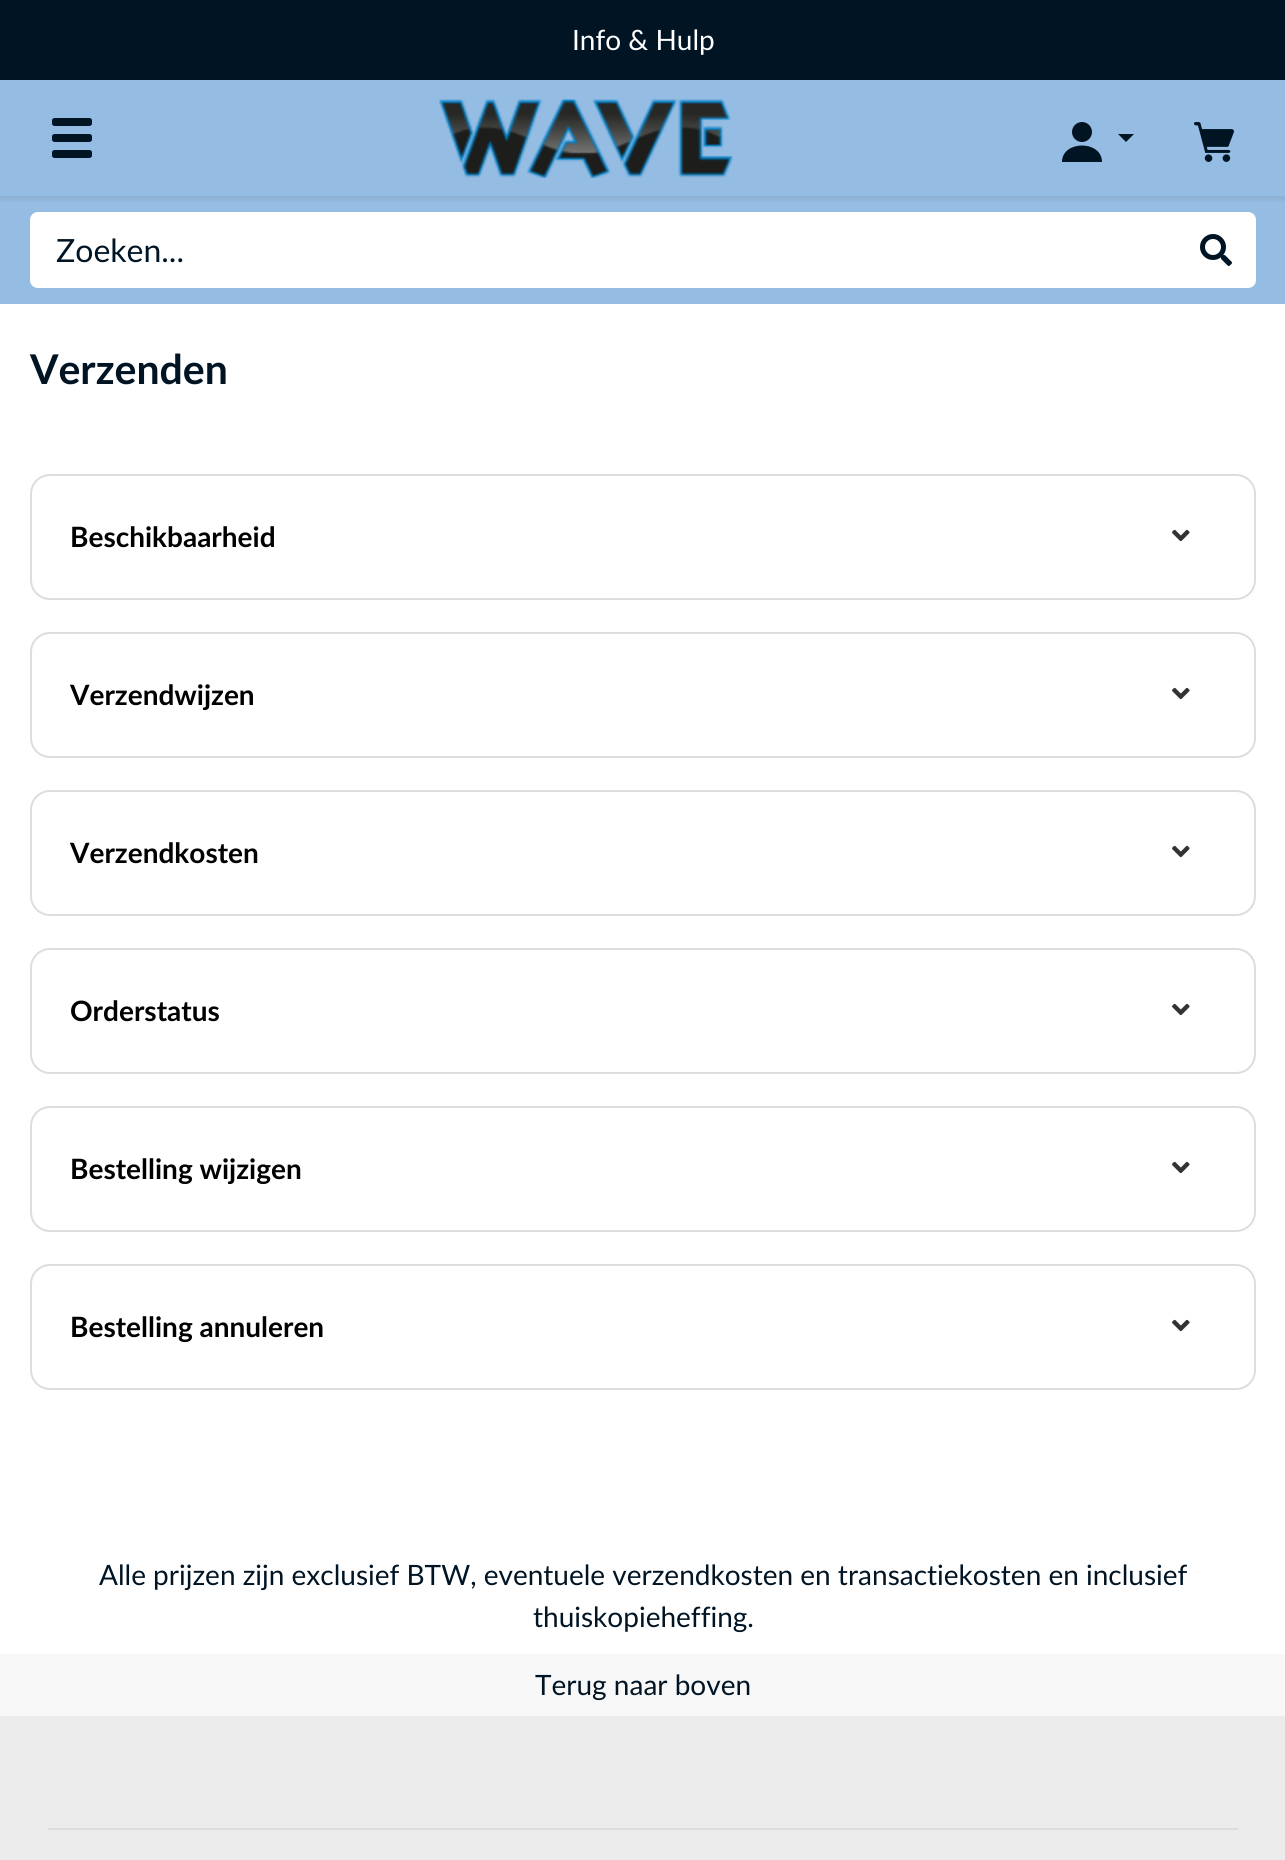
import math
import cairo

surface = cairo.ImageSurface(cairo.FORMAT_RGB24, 1285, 1860)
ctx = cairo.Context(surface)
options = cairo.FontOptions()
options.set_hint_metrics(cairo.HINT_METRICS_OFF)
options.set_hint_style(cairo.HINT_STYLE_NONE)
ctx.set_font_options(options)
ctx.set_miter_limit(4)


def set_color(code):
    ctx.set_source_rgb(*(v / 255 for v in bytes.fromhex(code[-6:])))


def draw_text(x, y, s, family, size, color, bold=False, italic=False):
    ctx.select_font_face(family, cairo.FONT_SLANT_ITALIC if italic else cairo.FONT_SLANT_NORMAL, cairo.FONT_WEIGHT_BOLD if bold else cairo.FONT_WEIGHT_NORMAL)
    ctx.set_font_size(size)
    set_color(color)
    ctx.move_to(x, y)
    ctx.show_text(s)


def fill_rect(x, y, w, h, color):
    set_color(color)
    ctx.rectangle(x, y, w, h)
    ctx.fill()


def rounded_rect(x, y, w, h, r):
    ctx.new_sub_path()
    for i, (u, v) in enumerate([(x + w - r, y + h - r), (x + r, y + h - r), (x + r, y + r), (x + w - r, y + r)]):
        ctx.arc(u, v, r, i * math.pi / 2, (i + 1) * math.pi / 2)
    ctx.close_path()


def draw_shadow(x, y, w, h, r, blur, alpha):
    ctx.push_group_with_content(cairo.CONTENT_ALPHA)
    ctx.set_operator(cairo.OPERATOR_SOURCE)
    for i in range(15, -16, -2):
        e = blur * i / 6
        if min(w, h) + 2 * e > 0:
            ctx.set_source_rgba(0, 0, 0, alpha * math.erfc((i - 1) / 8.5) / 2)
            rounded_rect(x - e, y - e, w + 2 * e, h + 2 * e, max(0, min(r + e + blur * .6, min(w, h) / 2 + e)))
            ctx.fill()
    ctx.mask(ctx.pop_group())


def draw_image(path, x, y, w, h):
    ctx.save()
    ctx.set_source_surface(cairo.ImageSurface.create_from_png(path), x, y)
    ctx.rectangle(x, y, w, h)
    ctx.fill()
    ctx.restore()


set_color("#ffffff")
ctx.paint()
fill_rect(0, 0, 1285, 80, "#001424")
draw_text(572, 50, "Info & Hulp", "Lato", 28, "#ffffff")
fill_rect(0, 80, 1285, 224, "#95bce2")
ctx.save()
ctx.rectangle(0, 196, 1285, 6)
ctx.clip()
set_color("#000000")
draw_shadow(0, 84, 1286, 116, 0, 4, 0.07)
ctx.restore()
set_color("#001424")
rounded_rect(52, 118, 40, 8, 2.5)
ctx.fill()
rounded_rect(52, 134, 40, 8, 2.5)
ctx.fill()
rounded_rect(52, 150, 40, 8, 2.5)
ctx.fill()
draw_image("assets/img1.png", 439, 99, 295, 79)
ctx.arc(1082, 132, 10, 0, 2 * math.pi)
ctx.fill()
ctx.new_path()
ctx.move_to(1118, 134)
ctx.line_to(1134, 134)
ctx.line_to(1126, 142)
ctx.close_path()
ctx.fill()
ctx.new_path()
ctx.move_to(1102, 162)
ctx.line_to(1062, 162)
ctx.curve_to(1062, 140, 1102, 140, 1102, 162)
ctx.close_path()
ctx.fill()
draw_image("assets/img2.png", 1194, 122, 40, 40)
set_color("#ffffff")
ctx.new_path()
ctx.move_to(38, 213)
ctx.line_to(1175, 213)
ctx.line_to(1175, 287)
ctx.line_to(38, 287)
ctx.curve_to(34, 287, 31, 284, 31, 280)
ctx.line_to(31, 220)
ctx.curve_to(31, 216, 34, 213, 38, 213)
ctx.close_path()
ctx.fill_preserve()
ctx.stroke()
draw_text(56, 262, "Zoeken...", "Lato", 32, "#001424")
set_color("#ffffff")
ctx.new_path()
ctx.move_to(1176, 212)
ctx.line_to(1248, 212)
ctx.curve_to(1252.5, 212, 1256, 215.5, 1256, 220)
ctx.line_to(1256, 280)
ctx.curve_to(1256, 284.5, 1252.5, 288, 1248, 288)
ctx.line_to(1176, 288)
ctx.close_path()
ctx.fill()
draw_image("assets/img3.png", 1200, 234, 32, 32)
draw_text(30, 384, "Verzenden", "Lato", 41, "#001424", bold=True)
rounded_rect(31, 475, 1224, 124, 19)
set_color("#dddddd")
ctx.stroke()
draw_text(70, 547, "Beschikbaarheid", "Lato", 28, "#000000", bold=True)
draw_image("assets/img4.png", 1172, 529, 18, 13)
rounded_rect(31, 633, 1224, 124, 19)
set_color("#dddddd")
ctx.stroke()
draw_text(70, 705, "Verzendwijzen", "Lato", 28, "#000000", bold=True)
draw_image("assets/img4.png", 1172, 687, 18, 13)
rounded_rect(31, 791, 1224, 124, 19)
set_color("#dddddd")
ctx.stroke()
draw_text(70, 863, "Verzendkosten", "Lato", 28, "#000000", bold=True)
draw_image("assets/img4.png", 1172, 845, 18, 13)
rounded_rect(31, 949, 1224, 124, 19)
set_color("#dddddd")
ctx.stroke()
draw_text(70, 1021, "Orderstatus", "Lato", 28, "#000000", bold=True)
draw_image("assets/img4.png", 1172, 1003, 18, 13)
rounded_rect(31, 1107, 1224, 124, 19)
set_color("#dddddd")
ctx.stroke()
draw_text(70, 1179, "Bestelling wijzigen", "Lato", 28, "#000000", bold=True)
draw_image("assets/img4.png", 1172, 1161, 18, 13)
rounded_rect(31, 1265, 1224, 124, 19)
set_color("#dddddd")
ctx.stroke()
draw_text(70, 1337, "Bestelling annuleren", "Lato", 28, "#000000", bold=True)
draw_image("assets/img4.png", 1172, 1319, 18, 13)
draw_text(99, 1585, "Alle prijzen zijn exclusief BTW, eventuele verzendkosten en transactiekosten en inclusief", "Lato", 28, "#001424")
draw_text(533, 1627, "thuiskopieheffing.", "Lato", 28, "#001424")
fill_rect(0, 1654, 1285, 62, "#f8f8f8")
draw_text(535, 1695, "Terug naar boven", "Lato", 28, "#001424")
fill_rect(0, 1716, 1285, 144, "#ececec")
fill_rect(48, 1828, 1190, 2, "#dddddd")
surface.write_to_png("output.png")
